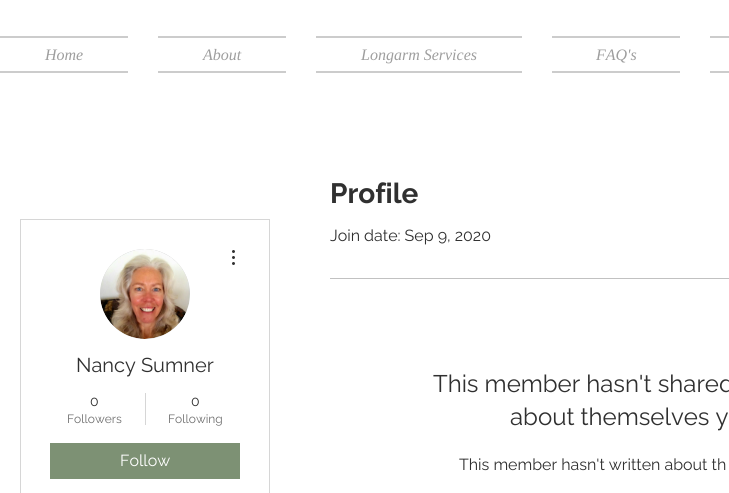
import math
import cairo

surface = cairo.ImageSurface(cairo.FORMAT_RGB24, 729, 493)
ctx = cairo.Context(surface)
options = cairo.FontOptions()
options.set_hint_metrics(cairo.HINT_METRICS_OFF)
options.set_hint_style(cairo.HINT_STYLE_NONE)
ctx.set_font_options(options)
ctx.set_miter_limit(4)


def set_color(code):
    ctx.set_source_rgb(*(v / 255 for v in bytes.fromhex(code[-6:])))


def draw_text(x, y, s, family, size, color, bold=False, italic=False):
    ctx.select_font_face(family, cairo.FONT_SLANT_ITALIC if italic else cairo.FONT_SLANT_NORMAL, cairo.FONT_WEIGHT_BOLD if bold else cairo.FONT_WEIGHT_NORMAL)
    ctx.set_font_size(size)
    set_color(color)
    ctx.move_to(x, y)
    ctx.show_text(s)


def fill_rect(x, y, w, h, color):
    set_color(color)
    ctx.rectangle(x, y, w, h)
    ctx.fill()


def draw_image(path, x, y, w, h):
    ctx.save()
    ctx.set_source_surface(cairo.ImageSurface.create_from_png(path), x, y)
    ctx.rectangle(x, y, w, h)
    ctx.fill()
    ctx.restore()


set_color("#ffffff")
ctx.paint()
fill_rect(0, 36, 128, 2, "#cccccc")
fill_rect(0, 71, 128, 2, "#cccccc")
draw_text(45, 60, "Home", "Liberation Serif", 16, "#9e9e9e", italic=True)
fill_rect(158, 36, 128, 2, "#cccccc")
fill_rect(158, 71, 128, 2, "#cccccc")
draw_text(203, 60, "About", "Liberation Serif", 16, "#9e9e9e", italic=True)
fill_rect(316, 36, 206, 2, "#cccccc")
fill_rect(316, 71, 206, 2, "#cccccc")
draw_text(361, 60, "Longarm Services", "Liberation Serif", 16, "#9e9e9e", italic=True)
fill_rect(552, 36, 128, 2, "#cccccc")
fill_rect(552, 71, 128, 2, "#cccccc")
draw_text(596, 60, "FAQ's", "Liberation Serif", 16, "#9e9e9e", italic=True)
fill_rect(710, 36, 19, 2, "#cccccc")
fill_rect(710, 71, 19, 2, "#cccccc")
ctx.rectangle(20.5, 219.5, 249, 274)
set_color("#d6d6d6")
ctx.set_line_width(1)
ctx.stroke()
set_color("#d8d8d8")
ctx.arc(145, 294, 45, 0, 2 * math.pi)
ctx.fill()
draw_image("assets/img1.png", 100, 249, 90, 90)
draw_image("assets/img2.png", 232, 250, 3, 15)
draw_text(76, 372, "Nancy Sumner", "Raleway", 20, "#303030")
draw_text(90, 406, "0", "Raleway", 14, "#303030")
draw_text(67, 423, "Followers", "Raleway", 12, "#6e6e6e")
fill_rect(145, 393, 1, 32, "#d6d6d6")
draw_text(191, 406, "0", "Raleway", 14, "#303030")
draw_text(168, 423, "Following", "Raleway", 12, "#6e6e6e")
fill_rect(50, 443, 190, 36, "#7d9174")
draw_text(120, 466, "Follow", "Raleway", 16, "#ffffff")
draw_text(330, 203, "Profile", "Raleway", 28, "#303030", bold=True)
draw_text(330, 241, "Join date: Sep 9, 2020", "Raleway", 16, "#303030")
fill_rect(330, 278, 399, 1, "#c1c1c1")
draw_text(433, 392, "This member hasn't shared", "Raleway", 24, "#303030")
draw_text(510, 425, "about themselves y", "Raleway", 24, "#303030")
draw_text(459, 470, "This member hasn't written about th", "Raleway", 16, "#303030")
surface.write_to_png("output.png")
